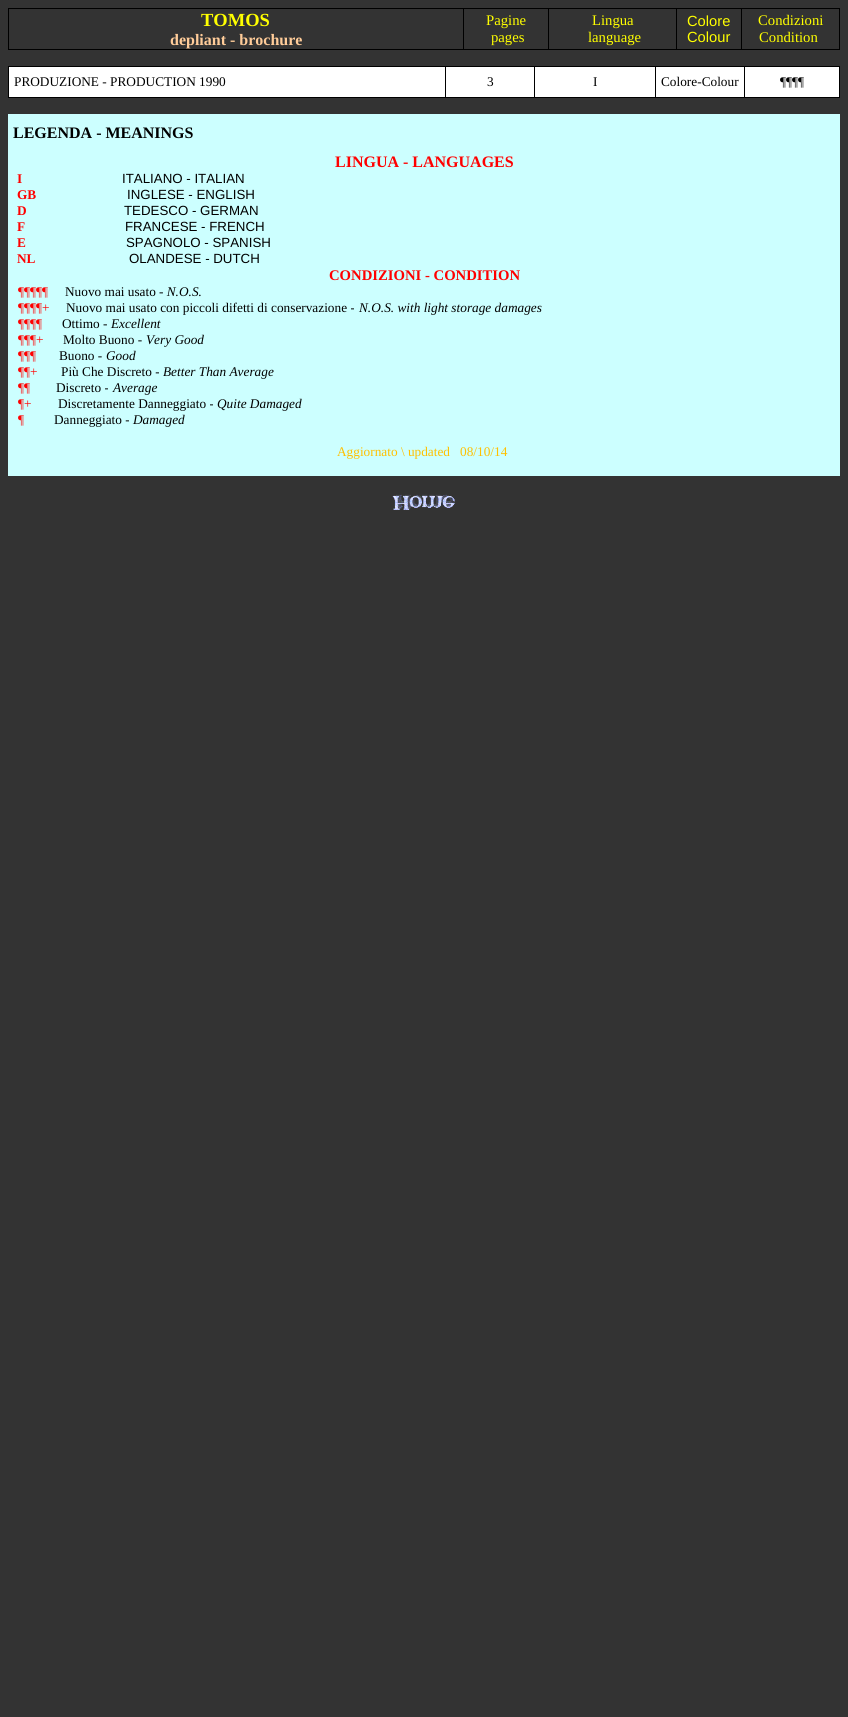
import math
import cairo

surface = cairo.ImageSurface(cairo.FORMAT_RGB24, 848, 1717)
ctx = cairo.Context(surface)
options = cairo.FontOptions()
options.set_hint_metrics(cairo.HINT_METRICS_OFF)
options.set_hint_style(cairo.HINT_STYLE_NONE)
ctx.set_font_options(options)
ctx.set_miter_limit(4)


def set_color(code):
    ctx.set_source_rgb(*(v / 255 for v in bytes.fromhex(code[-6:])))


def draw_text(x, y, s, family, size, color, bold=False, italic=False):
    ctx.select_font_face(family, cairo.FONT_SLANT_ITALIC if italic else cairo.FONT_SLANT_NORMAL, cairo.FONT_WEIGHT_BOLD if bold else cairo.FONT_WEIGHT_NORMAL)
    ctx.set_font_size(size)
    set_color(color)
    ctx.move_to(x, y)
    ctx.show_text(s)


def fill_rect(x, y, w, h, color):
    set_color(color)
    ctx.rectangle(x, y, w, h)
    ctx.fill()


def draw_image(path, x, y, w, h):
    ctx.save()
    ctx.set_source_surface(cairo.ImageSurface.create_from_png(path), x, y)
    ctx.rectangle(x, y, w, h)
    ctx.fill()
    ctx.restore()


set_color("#333333")
ctx.paint()
fill_rect(8, 8, 832, 1, "#000000")
fill_rect(839, 8, 1, 42, "#000000")
fill_rect(741, 49, 99, 1, "#000000")
fill_rect(741, 8, 1, 42, "#000000")
fill_rect(676, 49, 66, 1, "#000000")
fill_rect(676, 8, 1, 42, "#000000")
fill_rect(548, 49, 129, 1, "#000000")
fill_rect(548, 8, 1, 42, "#000000")
fill_rect(463, 49, 86, 1, "#000000")
fill_rect(463, 8, 1, 42, "#000000")
fill_rect(8, 49, 456, 1, "#000000")
fill_rect(8, 8, 1, 42, "#000000")
draw_text(201, 26, "TOMOS", "Liberation Serif", 18.5, "#ffff00", bold=True)
draw_text(170, 45, "depliant - brochure", "Liberation Serif", 16, "#ffcc99", bold=True)
draw_text(486, 25, "Pagine", "Liberation Serif", 14.7, "#ffff00")
draw_text(491, 42, "pages", "Liberation Serif", 14.7, "#ffff00")
draw_text(592, 25, "Lingua", "Liberation Serif", 14.7, "#ffff00")
draw_text(588, 42, "language", "Liberation Serif", 14.7, "#ffff00")
draw_text(687, 26, "Colore", "Liberation Sans", 14.7, "#ffff00")
draw_text(687, 42, "Colour", "Liberation Sans", 14.7, "#ffff00")
draw_text(758, 25, "Condizioni", "Liberation Serif", 14.7, "#ffff00")
draw_text(759, 42, "Condition", "Liberation Serif", 14.7, "#ffff00")
fill_rect(9, 67, 436, 30, "#ffffff")
fill_rect(8, 66, 832, 1, "#000000")
fill_rect(839, 66, 1, 32, "#000000")
fill_rect(744, 97, 96, 1, "#000000")
fill_rect(744, 66, 1, 32, "#000000")
fill_rect(655, 97, 90, 1, "#000000")
fill_rect(655, 66, 1, 32, "#000000")
fill_rect(534, 97, 122, 1, "#000000")
fill_rect(534, 66, 1, 32, "#000000")
fill_rect(445, 97, 90, 1, "#000000")
fill_rect(445, 66, 1, 32, "#000000")
fill_rect(8, 97, 438, 1, "#000000")
fill_rect(8, 66, 1, 32, "#000000")
draw_text(14, 86, "PRODUZIONE - PRODUCTION 1990", "Liberation Serif", 13.3, "#000000")
fill_rect(446, 67, 88, 30, "#ffffff")
draw_text(487, 86, "3", "Liberation Serif", 13.3, "#000000")
fill_rect(535, 67, 120, 30, "#ffffff")
draw_text(593, 86, "I", "Liberation Serif", 13.3, "#000000")
fill_rect(656, 67, 88, 30, "#ffffff")
draw_text(661, 86, "Colore-Colour", "Liberation Serif", 13.3, "#000000")
fill_rect(745, 67, 94, 30, "#ffffff")
draw_text(780, 86, "¶¶¶¶", "Liberation Serif", 13.3, "#000000")
fill_rect(8, 114, 832, 362, "#ccffff")
draw_text(13, 138, "LEGENDA - MEANINGS", "Liberation Serif", 16, "#000000", bold=True)
draw_text(335, 167, "LINGUA - LANGUAGES", "Liberation Serif", 16, "#ff0000", bold=True)
draw_text(17, 183, "I", "Liberation Serif", 13.3, "#ff0000", bold=True)
draw_text(122, 183, "ITALIANO - ITALIAN", "Liberation Sans", 13.3, "#000000")
draw_text(17, 199, "GB", "Liberation Serif", 13.3, "#ff0000", bold=True)
draw_text(127, 199, "INGLESE - ENGLISH", "Liberation Sans", 13.3, "#000000")
draw_text(17, 215, "D", "Liberation Serif", 13.3, "#ff0000", bold=True)
draw_text(124, 215, "TEDESCO - GERMAN", "Liberation Sans", 13.3, "#000000")
draw_text(17, 231, "F", "Liberation Serif", 13.3, "#ff0000", bold=True)
draw_text(125, 231, "FRANCESE - FRENCH", "Liberation Sans", 13.3, "#000000")
draw_text(17, 247, "E", "Liberation Serif", 13.3, "#ff0000", bold=True)
draw_text(126, 247, "SPAGNOLO - SPANISH", "Liberation Sans", 13.3, "#000000")
draw_text(17, 263, "NL", "Liberation Serif", 13.3, "#ff0000", bold=True)
draw_text(129, 263, "OLANDESE - DUTCH", "Liberation Sans", 13.3, "#000000")
draw_text(329, 280, "CONDIZIONI - CONDITION", "Liberation Serif", 14.7, "#ff0000", bold=True)
draw_text(18, 296, "¶¶¶¶¶", "Liberation Serif", 13.3, "#ff0000")
draw_text(65, 296, "Nuovo mai usato", "Liberation Serif", 13.3, "#000000")
draw_text(159, 296, "- N.O.S.", "Liberation Serif", 13.3, "#000000", italic=True)
draw_text(18, 312, "¶¶¶¶+", "Liberation Serif", 13.3, "#ff0000")
draw_text(66, 312, "Nuovo mai usato con piccoli difetti di conservazione -", "Liberation Serif", 13.3, "#000000")
draw_text(359, 312, "N.O.S. with light storage damages", "Liberation Serif", 13.3, "#000000", italic=True)
draw_text(18, 328, "¶¶¶¶", "Liberation Serif", 13.3, "#ff0000")
draw_text(62, 328, "Ottimo -", "Liberation Serif", 13.3, "#000000")
draw_text(111, 328, "Excellent", "Liberation Serif", 13.3, "#000000", italic=True)
draw_text(18, 344, "¶¶¶+", "Liberation Serif", 13.3, "#ff0000")
draw_text(63, 344, "Molto Buono -", "Liberation Serif", 13.3, "#000000")
draw_text(146, 344, "Very Good", "Liberation Serif", 13.3, "#000000", italic=True)
draw_text(18, 360, "¶¶¶", "Liberation Serif", 13.3, "#ff0000")
draw_text(59, 360, "Buono -", "Liberation Serif", 13.3, "#000000")
draw_text(106, 360, "Good", "Liberation Serif", 13.3, "#000000", italic=True)
draw_text(18, 376, "¶¶+", "Liberation Serif", 13.3, "#ff0000")
draw_text(61, 376, "Più Che Discreto -", "Liberation Serif", 13.3, "#000000")
draw_text(163, 376, "Better Than Average", "Liberation Serif", 13.3, "#000000", italic=True)
draw_text(18, 392, "¶¶", "Liberation Serif", 13.3, "#ff0000")
draw_text(56, 392, "Discreto -", "Liberation Serif", 13.3, "#000000")
draw_text(113, 392, "Average", "Liberation Serif", 13.3, "#000000", italic=True)
draw_text(18, 408, "¶+", "Liberation Serif", 13.3, "#ff0000")
draw_text(58, 408, "Discretamente Danneggiato -", "Liberation Serif", 13.3, "#000000")
draw_text(217, 408, "Quite Damaged", "Liberation Serif", 13.3, "#000000", italic=True)
draw_text(18, 424, "¶", "Liberation Serif", 13.3, "#ff0000")
draw_text(54, 424, "Danneggiato -", "Liberation Serif", 13.3, "#000000")
draw_text(133, 424, "Damaged", "Liberation Serif", 13.3, "#000000", italic=True)
draw_text(337, 456, "Aggiornato \\ updated", "Liberation Serif", 13.3, "#ffc000")
draw_text(460, 456, "08/10/14", "Liberation Serif", 13.3, "#ffc000")
draw_image("assets/img1.png", 392, 494, 63, 16)
surface.write_to_png("output.png")
